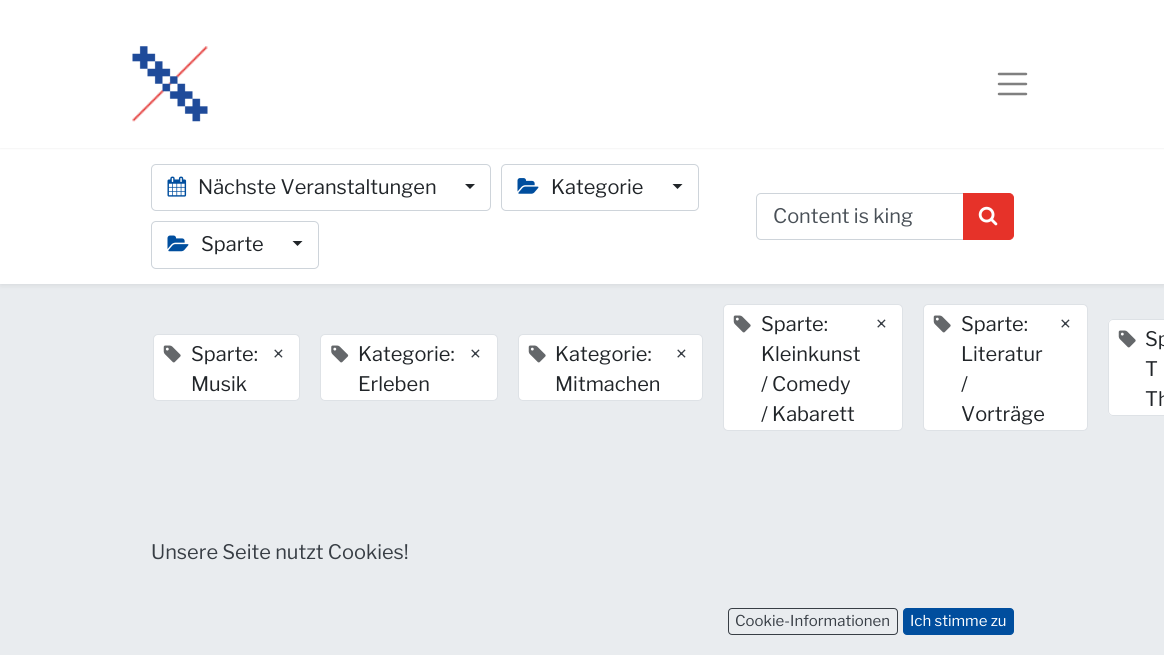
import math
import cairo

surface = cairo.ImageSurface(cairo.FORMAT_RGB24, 1164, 655)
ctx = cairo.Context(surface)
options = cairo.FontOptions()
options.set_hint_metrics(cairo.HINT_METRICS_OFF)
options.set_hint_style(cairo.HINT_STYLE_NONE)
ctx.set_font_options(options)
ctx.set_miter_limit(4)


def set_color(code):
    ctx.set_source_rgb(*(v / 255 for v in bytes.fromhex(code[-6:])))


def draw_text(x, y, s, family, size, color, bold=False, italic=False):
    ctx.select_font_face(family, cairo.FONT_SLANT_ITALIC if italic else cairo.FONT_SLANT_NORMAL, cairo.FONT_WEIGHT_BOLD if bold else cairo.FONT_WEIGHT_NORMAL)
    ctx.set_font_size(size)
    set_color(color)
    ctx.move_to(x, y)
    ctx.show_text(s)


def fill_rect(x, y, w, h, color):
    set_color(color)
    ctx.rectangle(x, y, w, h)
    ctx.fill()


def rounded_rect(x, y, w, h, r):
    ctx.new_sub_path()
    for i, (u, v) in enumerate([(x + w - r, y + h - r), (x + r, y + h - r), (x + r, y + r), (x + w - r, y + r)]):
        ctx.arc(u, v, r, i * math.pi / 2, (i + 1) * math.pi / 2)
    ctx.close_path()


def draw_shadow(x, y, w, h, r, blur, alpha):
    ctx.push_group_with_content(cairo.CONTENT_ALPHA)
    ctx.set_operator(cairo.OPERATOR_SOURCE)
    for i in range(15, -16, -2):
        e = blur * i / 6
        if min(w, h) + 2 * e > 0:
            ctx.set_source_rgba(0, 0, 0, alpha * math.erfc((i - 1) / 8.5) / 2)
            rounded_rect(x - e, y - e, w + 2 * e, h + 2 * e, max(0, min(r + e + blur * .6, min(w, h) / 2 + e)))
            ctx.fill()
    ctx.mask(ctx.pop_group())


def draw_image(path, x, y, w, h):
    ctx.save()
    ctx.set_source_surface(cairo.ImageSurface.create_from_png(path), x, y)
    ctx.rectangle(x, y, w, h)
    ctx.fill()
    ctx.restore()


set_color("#e9ecef")
ctx.paint()
set_color("#000000")
draw_shadow(0, 150, 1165, 136, 0, 2.5, 0.07)
fill_rect(0, 148, 1164, 136, "#ffffff")
set_color("#f6f6f6")
draw_shadow(0, 1, 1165, 148, 0, 0.5, 1)
fill_rect(0, 0, 1164, 148, "#ffffff")
draw_image("assets/img1.png", 132, 46, 76, 76)
ctx.new_path()
ctx.move_to(999, 74)
ctx.line_to(1026, 74)
ctx.move_to(999, 84)
ctx.line_to(1026, 84)
ctx.move_to(999, 94)
ctx.line_to(1026, 94)
set_color("#808080")
ctx.set_line_width(2.5)
ctx.set_line_cap(cairo.LINE_CAP_ROUND)
ctx.stroke()
rounded_rect(151.5, 164.5, 339, 46, 4.5)
set_color("#ced4da")
ctx.set_line_width(1)
ctx.set_line_cap(cairo.LINE_CAP_BUTT)
ctx.stroke()
draw_image("assets/img2.png", 167, 176, 20, 21)
draw_text(198, 194, "Nächste Veranstaltungen", "Libre Franklin Thin", 20, "#212529")
ctx.new_path()
ctx.move_to(465, 184)
ctx.line_to(475, 184)
ctx.line_to(470, 189)
ctx.close_path()
ctx.fill()
rounded_rect(501.5, 164.5, 197, 46, 4.5)
set_color("#ced4da")
ctx.stroke()
draw_image("assets/img3.png", 517, 178, 22, 16)
draw_text(551, 194, "Kategorie", "Libre Franklin Thin", 20, "#212529")
ctx.new_path()
ctx.move_to(672.5, 184)
ctx.line_to(682.5, 184)
ctx.line_to(677.5, 189)
ctx.close_path()
ctx.fill()
rounded_rect(151.5, 221.5, 167, 47, 4.5)
set_color("#ced4da")
ctx.stroke()
draw_image("assets/img4.png", 167, 235, 22, 17)
draw_text(201, 251, "Sparte", "Libre Franklin Thin", 20, "#212529")
ctx.new_path()
ctx.move_to(292.5, 241)
ctx.line_to(302.5, 241)
ctx.line_to(297.5, 246)
ctx.close_path()
ctx.fill()
ctx.new_path()
ctx.move_to(761, 193.5)
ctx.line_to(963.5, 193.5)
ctx.line_to(963.5, 239.5)
ctx.line_to(761, 239.5)
ctx.curve_to(758.5, 239.5, 756.5, 237.5, 756.5, 235)
ctx.line_to(756.5, 198)
ctx.curve_to(756.5, 195.5, 758.5, 193.5, 761, 193.5)
ctx.close_path()
set_color("#ced4da")
ctx.stroke()
draw_text(773, 223, "Content is king", "Libre Franklin Thin", 20, "#495057")
set_color("#e63229")
ctx.new_path()
ctx.move_to(963.5, 193.5)
ctx.line_to(1009, 193.5)
ctx.curve_to(1011.5, 193.5, 1013.5, 195.5, 1013.5, 198)
ctx.line_to(1013.5, 235)
ctx.curve_to(1013.5, 237.5, 1011.5, 239.5, 1009, 239.5)
ctx.line_to(963.5, 239.5)
ctx.close_path()
ctx.fill_preserve()
ctx.stroke()
draw_image("assets/img5.png", 978, 206, 20, 20)
set_color("#ffffff")
rounded_rect(153.5, 334.5, 146, 66, 4.5)
ctx.fill_preserve()
set_color("#dee2e6")
ctx.stroke()
draw_image("assets/img6.png", 163, 345, 18, 18)
draw_text(191, 361, "Sparte:", "Libre Franklin Thin", 20, "#212529")
draw_text(273, 361, "×", "Libre Franklin Thin", 20, "#383e45")
draw_text(191, 391, "Musik", "Libre Franklin Thin", 20, "#212529")
set_color("#ffffff")
rounded_rect(320.5, 334.5, 177, 66, 4.5)
ctx.fill_preserve()
set_color("#dee2e6")
ctx.stroke()
draw_image("assets/img7.png", 331, 345, 18, 18)
draw_text(358, 361, "Kategorie:", "Libre Franklin Thin", 20, "#212529")
draw_text(470, 361, "×", "Libre Franklin Thin", 20, "#383e45")
draw_text(358, 391, "Erleben", "Libre Franklin Thin", 20, "#212529")
set_color("#ffffff")
rounded_rect(518.5, 334.5, 184, 66, 4.5)
ctx.fill_preserve()
set_color("#dee2e6")
ctx.stroke()
draw_image("assets/img6.png", 528, 345, 18, 18)
draw_text(555, 361, "Kategorie:", "Libre Franklin Thin", 20, "#212529")
draw_text(676, 361, "×", "Libre Franklin Thin", 20, "#383e45")
draw_text(555, 391, "Mitmachen", "Libre Franklin Thin", 20, "#212529")
set_color("#ffffff")
rounded_rect(723.5, 304.5, 179, 126, 4.5)
ctx.fill_preserve()
set_color("#dee2e6")
ctx.stroke()
draw_image("assets/img6.png", 733, 315, 18, 18)
draw_text(761, 331, "Sparte:", "Libre Franklin Thin", 20, "#212529")
draw_text(876, 331, "×", "Libre Franklin Thin", 20, "#383e45")
draw_text(761, 361, "Kleinkunst", "Libre Franklin Thin", 20, "#212529")
draw_text(761, 391, "/ Comedy", "Libre Franklin Thin", 20, "#212529")
draw_text(761, 421, "/ Kabarett", "Libre Franklin Thin", 20, "#212529")
set_color("#ffffff")
rounded_rect(923.5, 304.5, 164, 126, 4.5)
ctx.fill_preserve()
set_color("#dee2e6")
ctx.stroke()
draw_image("assets/img6.png", 933, 315, 18, 18)
draw_text(961, 331, "Sparte:", "Libre Franklin Thin", 20, "#212529")
draw_text(1060, 331, "×", "Libre Franklin Thin", 20, "#383e45")
draw_text(961, 361, "Literatur", "Libre Franklin Thin", 20, "#212529")
draw_text(961, 391, "/", "Libre Franklin Thin", 20, "#212529")
draw_text(961, 421, "Vorträge", "Libre Franklin Thin", 20, "#212529")
set_color("#ffffff")
ctx.new_path()
ctx.move_to(1113, 319)
ctx.line_to(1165, 319)
ctx.line_to(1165, 416)
ctx.line_to(1113, 416)
ctx.curve_to(1110, 416, 1108, 414, 1108, 411)
ctx.line_to(1108, 324)
ctx.curve_to(1108, 321, 1110, 319, 1113, 319)
ctx.close_path()
ctx.fill()
rounded_rect(1108.5, 319.5, 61, 96, 4.5)
set_color("#dee2e6")
ctx.stroke()
draw_image("assets/img6.png", 1118, 330, 18, 18)
draw_text(1145, 346, "Sp", "Libre Franklin Thin", 20, "#212529")
draw_text(1145, 376, "T", "Libre Franklin Thin", 20, "#212529")
draw_text(1145, 406, "Th", "Libre Franklin Thin", 20, "#212529")
draw_text(151, 559, "Unsere Seite nutzt Cookies!", "Libre Franklin Thin", 20, "#383e45")
rounded_rect(728.5, 608.5, 169, 26, 3.5)
ctx.stroke()
draw_text(735, 626, "Cookie-Informationen", "Libre Franklin Thin", 15, "#383e45")
set_color("#004e9e")
rounded_rect(903.5, 608.5, 110, 26, 3.5)
ctx.fill_preserve()
ctx.stroke()
draw_text(910, 626, "Ich stimme zu", "Libre Franklin Thin", 15, "#ffffff")
surface.write_to_png("output.png")
